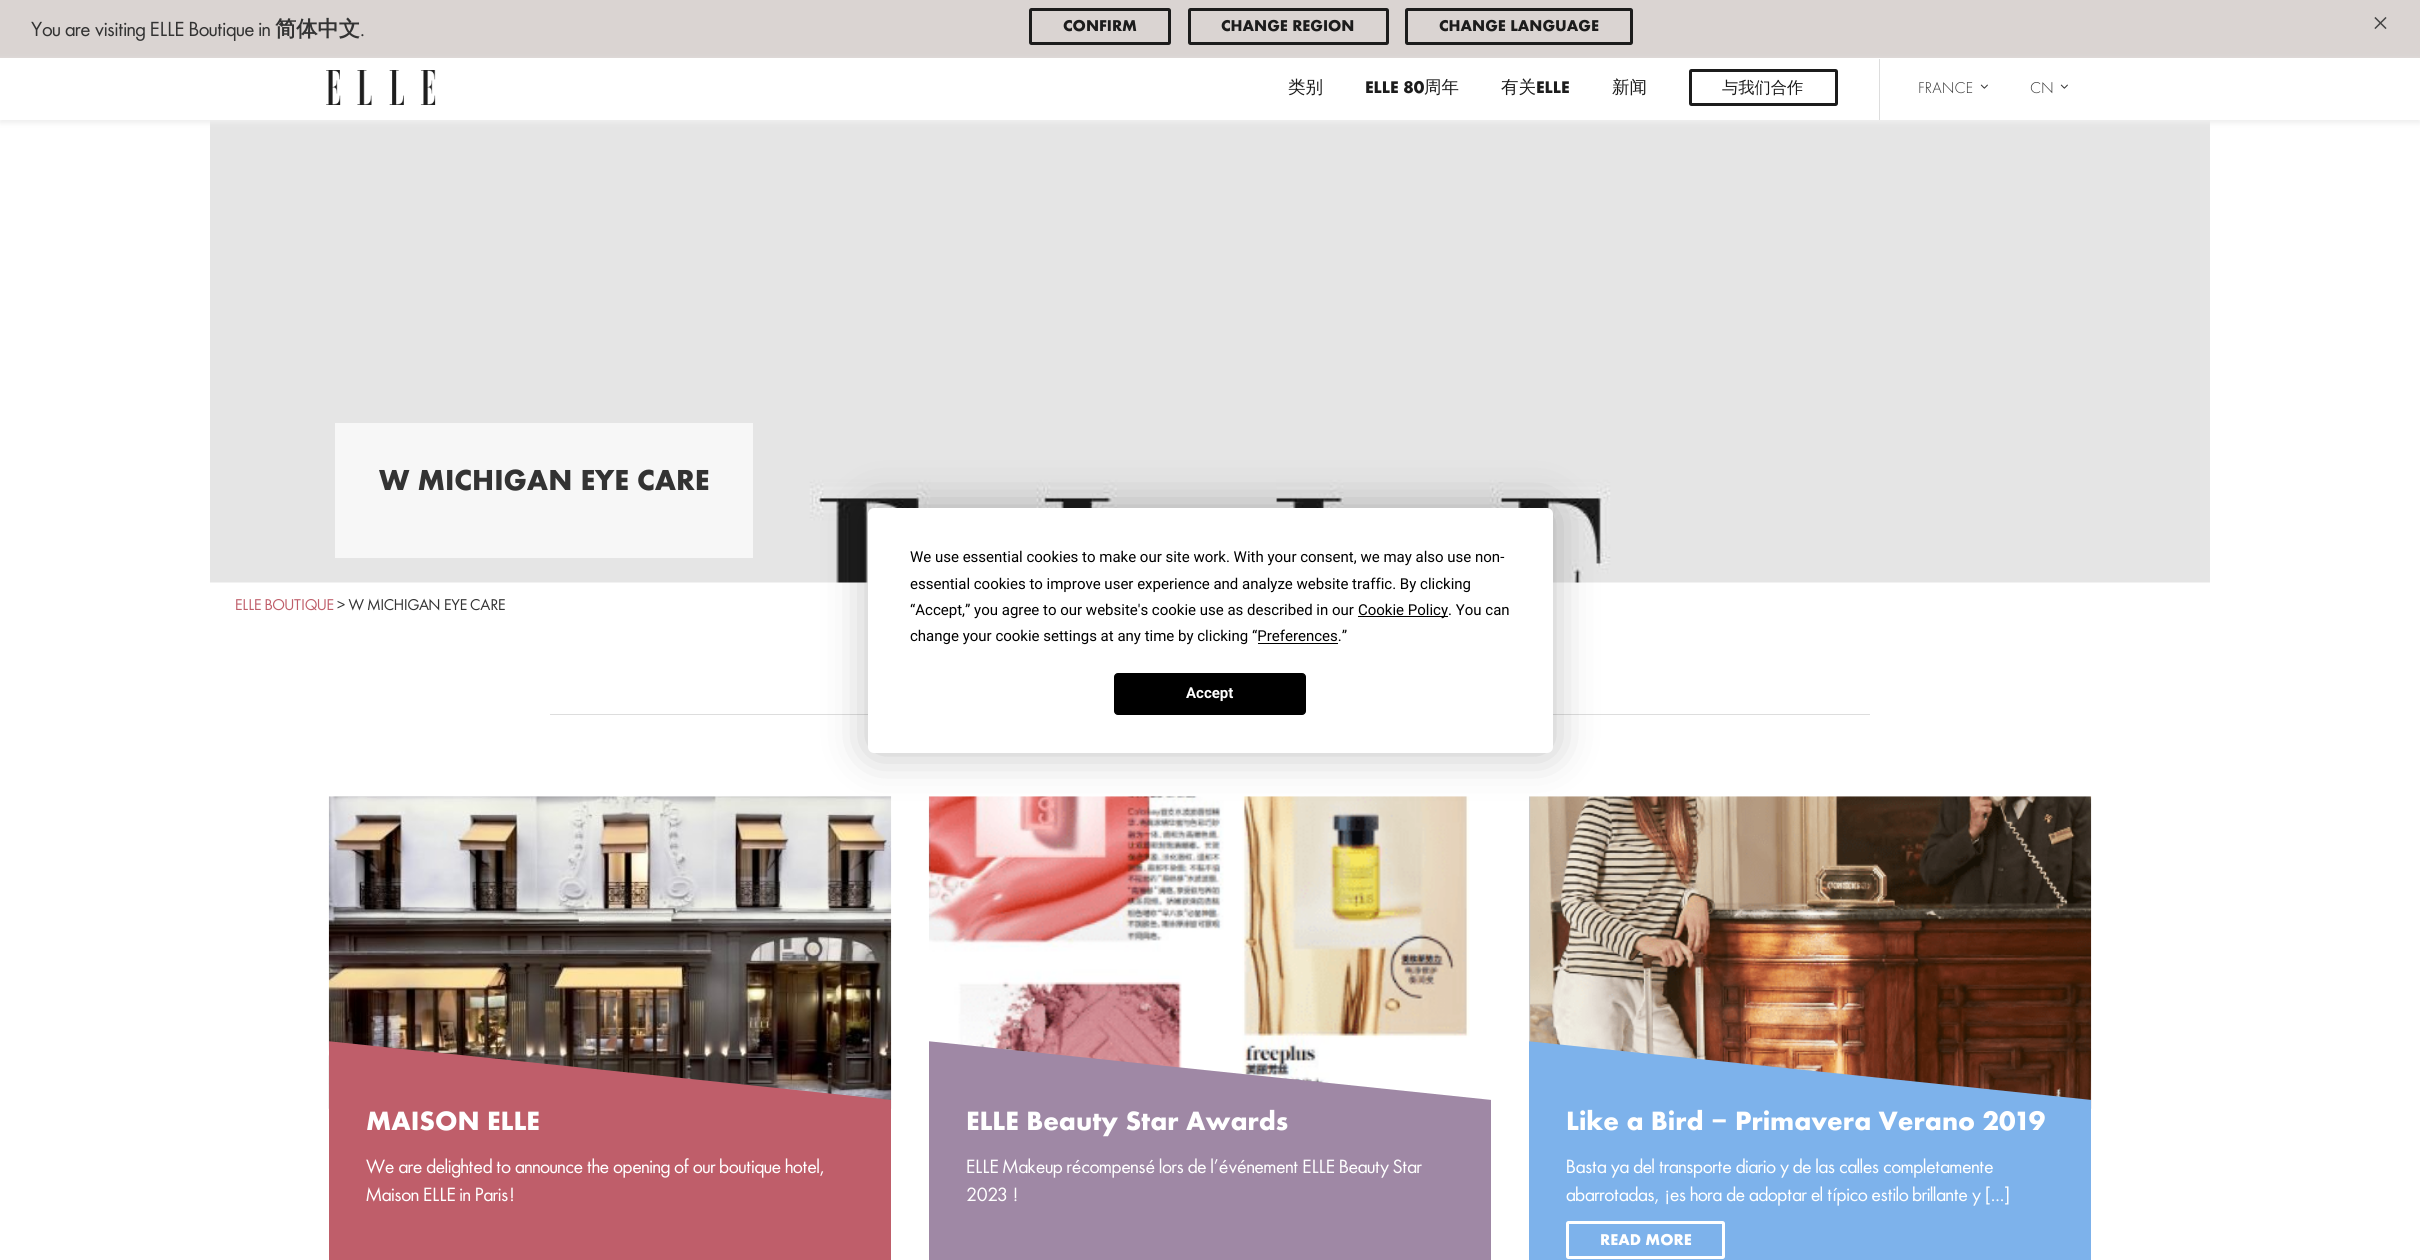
import math
import cairo

surface = cairo.ImageSurface(cairo.FORMAT_RGB24, 2420, 1260)
ctx = cairo.Context(surface)
options = cairo.FontOptions()
options.set_hint_metrics(cairo.HINT_METRICS_OFF)
options.set_hint_style(cairo.HINT_STYLE_NONE)
ctx.set_font_options(options)
ctx.set_miter_limit(4)


def set_color(code):
    ctx.set_source_rgb(*(v / 255 for v in bytes.fromhex(code[-6:])))


def draw_text(x, y, s, family, size, color, bold=False, italic=False):
    ctx.select_font_face(family, cairo.FONT_SLANT_ITALIC if italic else cairo.FONT_SLANT_NORMAL, cairo.FONT_WEIGHT_BOLD if bold else cairo.FONT_WEIGHT_NORMAL)
    ctx.set_font_size(size)
    set_color(color)
    ctx.move_to(x, y)
    ctx.show_text(s)


def fill_rect(x, y, w, h, color):
    set_color(color)
    ctx.rectangle(x, y, w, h)
    ctx.fill()


def rounded_rect(x, y, w, h, r):
    ctx.new_sub_path()
    for i, (u, v) in enumerate([(x + w - r, y + h - r), (x + r, y + h - r), (x + r, y + r), (x + w - r, y + r)]):
        ctx.arc(u, v, r, i * math.pi / 2, (i + 1) * math.pi / 2)
    ctx.close_path()


def draw_shadow(x, y, w, h, r, blur, alpha):
    ctx.push_group_with_content(cairo.CONTENT_ALPHA)
    ctx.set_operator(cairo.OPERATOR_SOURCE)
    for i in range(15, -16, -2):
        e = blur * i / 6
        if min(w, h) + 2 * e > 0:
            ctx.set_source_rgba(0, 0, 0, alpha * math.erfc((i - 1) / 8.5) / 2)
            rounded_rect(x - e, y - e, w + 2 * e, h + 2 * e, max(0, min(r + e + blur * .6, min(w, h) / 2 + e)))
            ctx.fill()
    ctx.mask(ctx.pop_group())


def draw_image(path, x, y, w, h):
    ctx.save()
    ctx.set_source_surface(cairo.ImageSurface.create_from_png(path), x, y)
    ctx.rectangle(x, y, w, h)
    ctx.fill()
    ctx.restore()


set_color("#ffffff")
ctx.paint()
fill_rect(0, 0, 2420, 58, "#dad4d2")
draw_text(31, 36, "You are visiting ELLE Boutique in", "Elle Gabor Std", 21.25, "#333333")
draw_text(275, 36, "简体中文", "WenQuanYi Zen Hei", 21.25, "#333333", bold=True)
draw_text(360, 36, ".", "Elle Gabor Std", 21.25, "#333333")
rounded_rect(1030.5, 9.5, 139, 34, 1)
set_color("#1c1c1c")
ctx.set_line_width(3)
ctx.stroke()
draw_text(1063, 31, "CONFIRM", "Elle Gabor Std", 16.25, "#1c1c1c", bold=True)
rounded_rect(1189.5, 9.5, 198, 34, 1)
ctx.stroke()
draw_text(1221, 31, "CHANGE REGION", "Elle Gabor Std", 16.25, "#1c1c1c", bold=True)
rounded_rect(1406.5, 9.5, 225, 34, 1)
ctx.stroke()
draw_text(1439, 31, "CHANGE LANGUAGE", "Elle Gabor Std", 16.25, "#1c1c1c", bold=True)
draw_text(2372, 33, "×", "Liberation Serif", 30, "#444444")
draw_image("assets/img3.png", 210, 120, 2000, 463)
ctx.save()
ctx.set_fill_rule(cairo.FILL_RULE_EVEN_ODD)
ctx.new_path()
ctx.move_to(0, 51)
ctx.line_to(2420, 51)
ctx.line_to(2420, 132)
ctx.line_to(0, 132)
ctx.close_path()
ctx.move_to(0, 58)
ctx.line_to(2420, 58)
ctx.line_to(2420, 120)
ctx.line_to(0, 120)
ctx.close_path()
ctx.clip()
set_color("#eeeeee")
draw_shadow(0, 60, 2420, 63, 0, 2.5, 1)
ctx.restore()
draw_image("assets/img1.png", 326, 70, 110, 35)
draw_text(1288, 93, "类别", "WenQuanYi Zen Hei Medium", 17.5, "#1c1c1c")
draw_text(1365, 93, "ELLE 80", "Elle Gabor Std", 17.5, "#1c1c1c", bold=True)
draw_text(1424, 93, "周年", "WenQuanYi Zen Hei Medium", 17.5, "#1c1c1c")
draw_text(1501, 93, "有关", "WenQuanYi Zen Hei Medium", 17.5, "#1c1c1c")
draw_text(1536, 93, "ELLE", "Elle Gabor Std", 17.5, "#1c1c1c", bold=True)
draw_text(1612, 93, "新闻", "WenQuanYi Zen Hei Medium", 17.5, "#1c1c1c")
rounded_rect(1690.5, 70.5, 146, 34, 1)
ctx.stroke()
draw_text(1722, 93, "与我们合作", "WenQuanYi Zen Hei Medium", 16.25, "#1c1c1c")
fill_rect(1879, 59, 1, 61, "#dddddd")
draw_text(1918, 93, "FRANCE", "Elle Gabor Std Light", 16.25, "#333333")
draw_image("assets/img2.png", 1980, 84, 8, 5)
draw_text(2030, 93, "CN", "Elle Gabor Std Light", 16.25, "#333333")
draw_image("assets/img2.png", 2060, 84, 8, 5)
fill_rect(335, 423, 418, 135, "#f7f7f7")
draw_text(379, 490, "W MICHIGAN EYE CARE", "Elle Gabor Std", 30, "#333333", bold=True)
draw_text(235, 610, "ELLE BOUTIQUE", "Elle Gabor Std", 16.25, "#bf5e6a")
draw_text(337, 610, "> W MICHIGAN EYE CARE", "Elle Gabor Std", 16.25, "#333333")
fill_rect(550, 714, 1320, 1, "#dddddd")
draw_image("assets/img4.png", 328, 796, 564, 313)
ctx.save()
ctx.rectangle(329, 796, 562, 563)
ctx.clip()
set_color("#bf5e6a")
ctx.new_path()
ctx.move_to(288, 1037)
ctx.line_to(959, 1107)
ctx.line_to(920, 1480)
ctx.line_to(248, 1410)
ctx.close_path()
ctx.fill()
ctx.restore()
draw_text(366, 1130, "MAISON ELLE", "Elle Gabor Std", 27.5, "#ffffff", bold=True)
draw_text(366, 1173, "We are delighted to announce the opening of our boutique hotel,", "Elle Gabor Std", 20, "#ffffff")
draw_text(366, 1201, "Maison ELLE in Paris!", "Elle Gabor Std", 20, "#ffffff")
draw_image("assets/img5.png", 928, 796, 542, 313)
ctx.save()
ctx.rectangle(929, 796, 562, 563)
ctx.clip()
set_color("#9f88a5")
ctx.new_path()
ctx.move_to(888, 1037)
ctx.line_to(1559, 1107)
ctx.line_to(1520, 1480)
ctx.line_to(848, 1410)
ctx.close_path()
ctx.fill()
ctx.restore()
draw_text(966, 1130, "ELLE Beauty Star Awards", "Elle Gabor Std", 27.5, "#ffffff", bold=True)
draw_text(966, 1173, "ELLE Makeup récompensé lors de l’événement ELLE Beauty Star", "Elle Gabor Std", 20, "#ffffff")
draw_text(966, 1201, "2023 !", "Elle Gabor Std", 20, "#ffffff")
draw_image("assets/img6.png", 1529, 796, 563, 313)
ctx.save()
ctx.rectangle(1529, 796, 562, 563)
ctx.clip()
set_color("#7db2eb")
ctx.new_path()
ctx.move_to(1488, 1037)
ctx.line_to(2159, 1107)
ctx.line_to(2120, 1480)
ctx.line_to(1448, 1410)
ctx.close_path()
ctx.fill()
ctx.restore()
draw_text(1566, 1130, "Like a Bird – Primavera Verano 2019", "Elle Gabor Std", 27.5, "#ffffff", bold=True)
draw_text(1566, 1173, "Basta ya del transporte diario y de las calles completamente", "Elle Gabor Std", 20, "#ffffff")
draw_text(1566, 1201, "abarrotadas, ¡es hora de adoptar el típico estilo brillante y [...]", "Elle Gabor Std", 20, "#ffffff")
rounded_rect(1567.5, 1222.5, 156, 35, 1)
ctx.stroke()
draw_text(1600, 1245, "READ MORE", "Elle Gabor Std", 16.25, "#ffffff", bold=True)
set_color("#000000")
draw_shadow(868, 508, 685, 245, 6, 22, 0.25)
set_color("#ffffff")
rounded_rect(868, 508, 685, 245, 6)
ctx.fill()
draw_text(910, 562, "We use essential cookies to make our site work. With your consent, we may also use non-", "Roboto", 15, "#000000")
draw_text(910, 589, "essential cookies to improve user experience and analyze website traffic. By clicking", "Roboto", 15, "#000000")
draw_text(910, 615, "“Accept,” you agree to our website's cookie use as described in our", "Roboto", 15, "#000000")
fill_rect(1358, 616, 90, 1, "#000000")
draw_text(1358, 615, "Cookie Policy. You can", "Roboto", 15, "#000000")
draw_text(910, 641, "change your cookie settings at any time by clicking “Preferences.”", "Roboto", 15, "#000000")
fill_rect(1258, 643, 80, 1, "#000000")
rounded_rect(1114.5, 673.5, 191, 41, 3.5)
ctx.fill_preserve()
ctx.set_line_width(1)
ctx.stroke()
draw_text(1186, 698, "Accept", "Roboto", 15, "#ffffff", bold=True)
surface.write_to_png("output.png")
